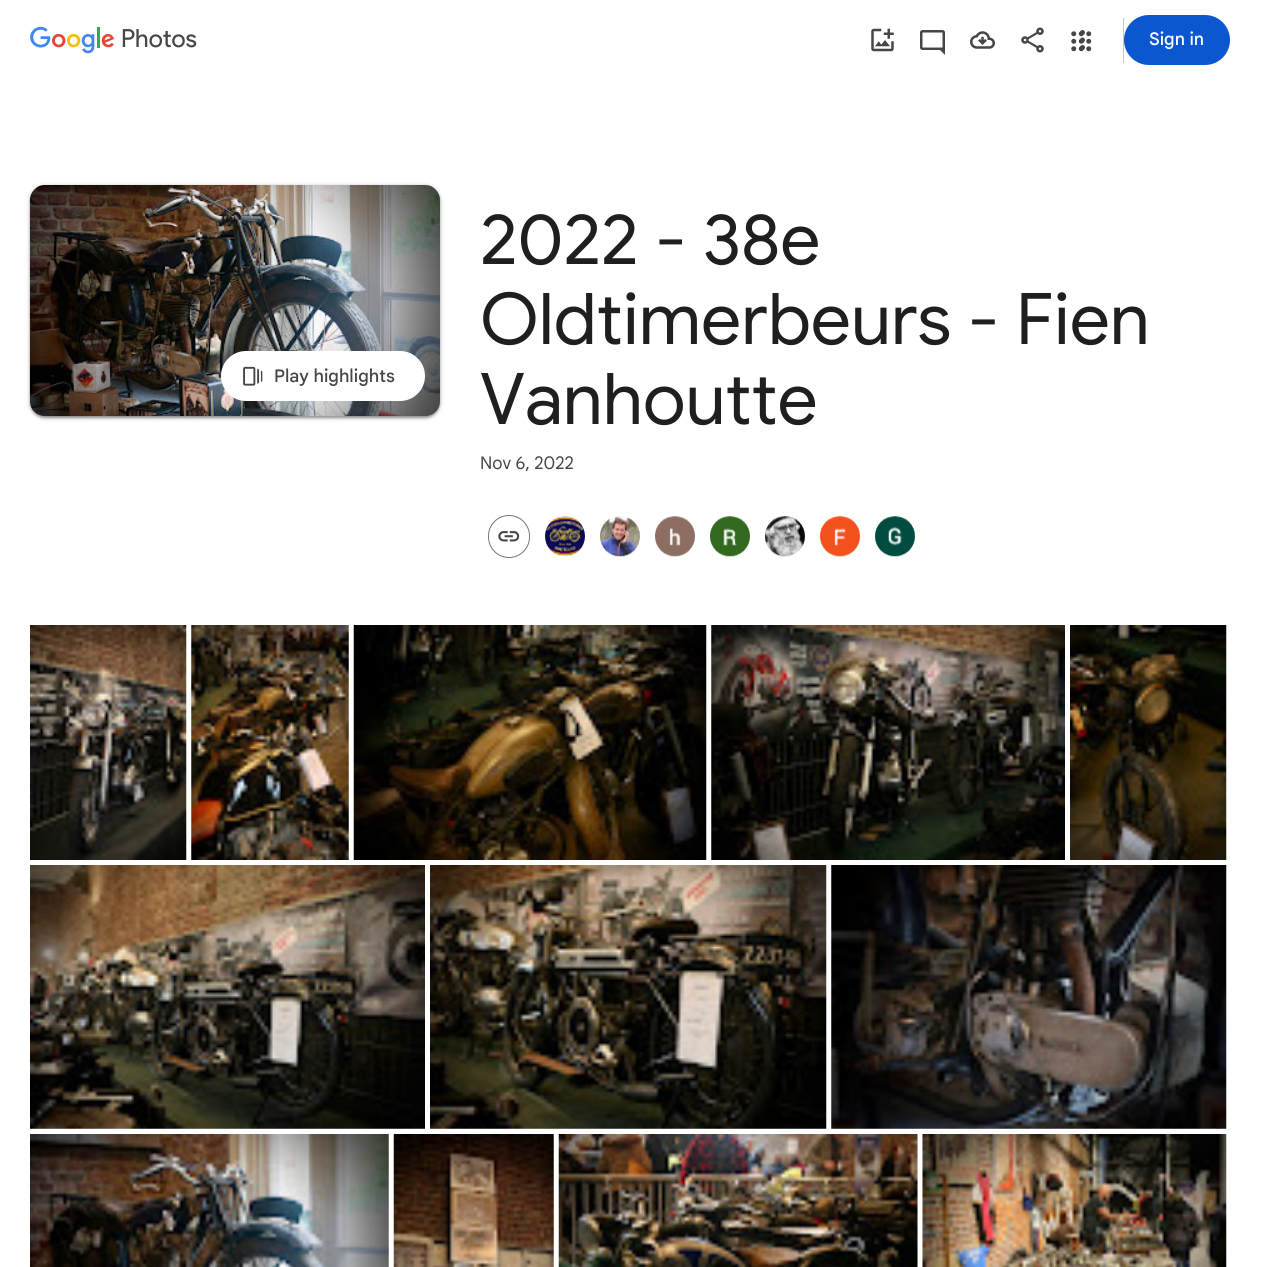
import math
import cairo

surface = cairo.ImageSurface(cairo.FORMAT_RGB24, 1275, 1267)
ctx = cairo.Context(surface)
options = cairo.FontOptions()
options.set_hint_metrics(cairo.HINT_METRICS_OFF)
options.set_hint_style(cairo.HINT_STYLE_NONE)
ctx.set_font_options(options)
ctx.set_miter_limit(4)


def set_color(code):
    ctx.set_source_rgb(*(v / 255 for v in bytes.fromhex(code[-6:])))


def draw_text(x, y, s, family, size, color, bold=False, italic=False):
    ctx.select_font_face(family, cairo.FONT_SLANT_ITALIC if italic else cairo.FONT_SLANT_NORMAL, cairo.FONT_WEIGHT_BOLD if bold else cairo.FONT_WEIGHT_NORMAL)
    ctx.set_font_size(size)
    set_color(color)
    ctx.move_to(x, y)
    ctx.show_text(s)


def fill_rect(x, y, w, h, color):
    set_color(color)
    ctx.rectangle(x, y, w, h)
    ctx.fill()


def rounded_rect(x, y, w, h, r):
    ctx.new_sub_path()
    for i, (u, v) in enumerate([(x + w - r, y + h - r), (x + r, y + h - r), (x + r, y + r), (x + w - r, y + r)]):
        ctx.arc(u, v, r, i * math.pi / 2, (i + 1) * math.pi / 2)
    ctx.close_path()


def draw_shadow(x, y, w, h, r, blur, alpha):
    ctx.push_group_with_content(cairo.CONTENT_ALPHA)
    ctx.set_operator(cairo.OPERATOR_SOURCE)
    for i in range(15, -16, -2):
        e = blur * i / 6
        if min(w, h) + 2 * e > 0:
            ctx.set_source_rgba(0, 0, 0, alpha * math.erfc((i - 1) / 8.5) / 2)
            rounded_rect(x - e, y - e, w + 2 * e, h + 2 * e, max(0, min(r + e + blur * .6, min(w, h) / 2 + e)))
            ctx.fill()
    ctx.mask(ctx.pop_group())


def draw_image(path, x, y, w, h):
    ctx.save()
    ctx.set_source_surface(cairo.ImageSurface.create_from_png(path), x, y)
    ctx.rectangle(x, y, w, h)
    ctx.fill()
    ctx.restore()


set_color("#ffffff")
ctx.paint()
draw_image("assets/img1.png", 30, 26, 84, 28)
draw_text(121, 47, "Photos", "Product Sans", 25, "#444746")
draw_image("assets/img2.png", 871, 28, 23, 24)
draw_image("assets/img3.png", 920, 30, 25, 25)
draw_image("assets/img4.png", 970, 31, 25, 18)
draw_image("assets/img5.png", 1021, 27, 23, 26)
draw_image("assets/img6.png", 1080, 30, 5, 20)
fill_rect(1123, 18, 1, 45, "#c4c7c5")
set_color("#000000")
draw_shadow(29, 185, 412, 234, 16, 2, 0.15)
draw_shadow(30, 186, 410, 232, 15, 1, 0.3)
draw_image("assets/img7.png", 30, 185, 410, 232)
set_color("#ffffff")
rounded_rect(221, 351, 204, 50, 25)
ctx.fill()
draw_image("assets/img8.png", 243, 366, 20, 20)
draw_text(274, 382, "Play highlights", "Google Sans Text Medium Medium", 17.5, "#444746")
draw_text(480, 264, "2022 - 38e", "Google Sans", 71.25, "#1f1f1f")
draw_text(480, 344, "Oldtimerbeurs - Fien", "Google Sans", 71.25, "#1f1f1f")
draw_text(480, 424, "Vanhoutte", "Google Sans", 71.25, "#1f1f1f")
draw_text(480, 469, "Nov 6, 2022", "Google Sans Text", 17.5, "#444746")
rounded_rect(488.5, 515.5, 41, 42, 20.5)
set_color("#747775")
ctx.set_line_width(1)
ctx.stroke()
draw_image("assets/img9.png", 498, 531, 22, 11)
draw_image("assets/img10.png", 545, 516, 40, 41)
draw_image("assets/img11.png", 600, 516, 40, 41)
draw_image("assets/img12.png", 655, 516, 40, 41)
draw_image("assets/img13.png", 710, 516, 40, 41)
draw_image("assets/img14.png", 765, 516, 40, 41)
draw_image("assets/img15.png", 820, 516, 40, 41)
draw_image("assets/img16.png", 875, 516, 40, 41)
draw_image("assets/img17.png", 30, 625, 157, 235)
draw_image("assets/img18.png", 191, 625, 158, 235)
draw_image("assets/img19.png", 353, 625, 354, 235)
draw_image("assets/img20.png", 711, 625, 354, 235)
draw_image("assets/img21.png", 1070, 625, 157, 235)
draw_image("assets/img22.png", 30, 865, 395, 264)
draw_image("assets/img23.png", 430, 865, 397, 264)
draw_image("assets/img24.png", 831, 865, 396, 264)
draw_image("assets/img25.png", 30, 1134, 359, 133)
draw_image("assets/img26.png", 393, 1134, 161, 133)
draw_image("assets/img27.png", 558, 1134, 360, 133)
draw_image("assets/img28.png", 922, 1134, 305, 133)
draw_image("assets/img29.png", 1071, 31, 21, 21)
set_color("#0b57d0")
rounded_rect(1124, 15, 106, 50, 25)
ctx.fill()
draw_text(1149, 45, "Sign in", "Google Sans Text Medium Medium", 17.5, "#ffffff")
surface.write_to_png("output.png")
